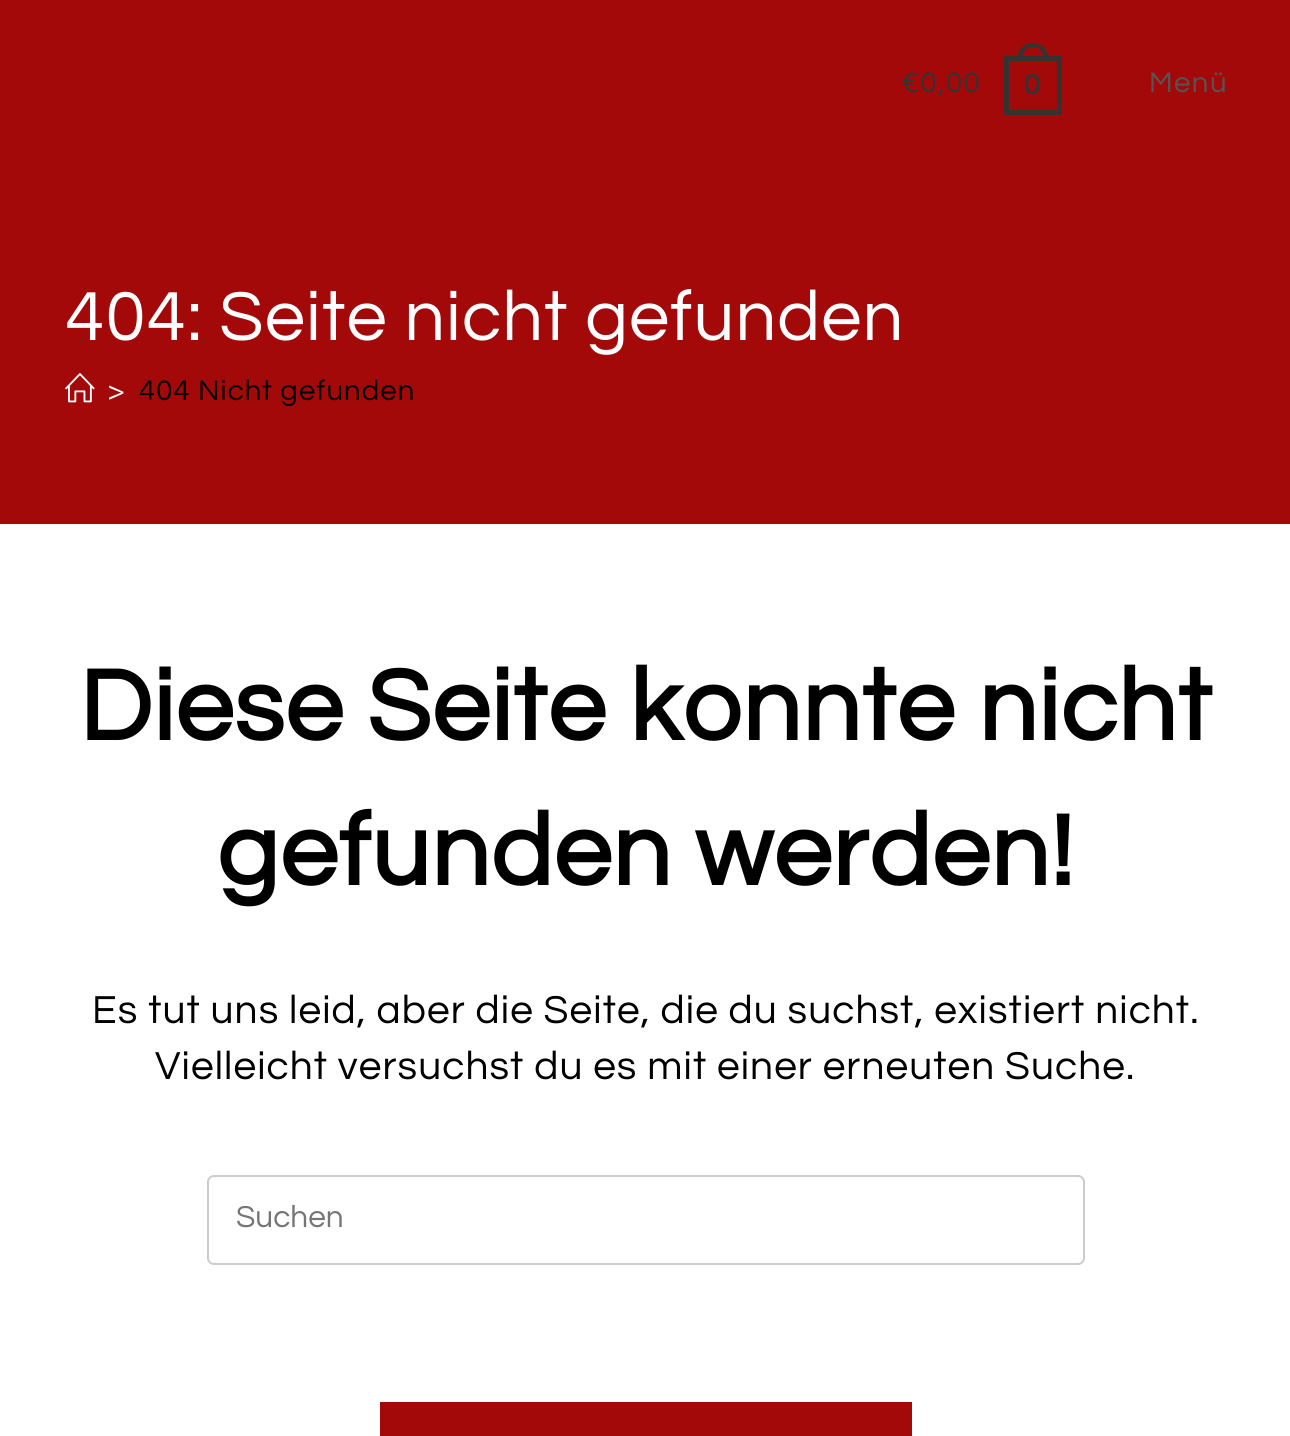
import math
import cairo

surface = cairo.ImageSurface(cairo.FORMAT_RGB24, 1290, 1436)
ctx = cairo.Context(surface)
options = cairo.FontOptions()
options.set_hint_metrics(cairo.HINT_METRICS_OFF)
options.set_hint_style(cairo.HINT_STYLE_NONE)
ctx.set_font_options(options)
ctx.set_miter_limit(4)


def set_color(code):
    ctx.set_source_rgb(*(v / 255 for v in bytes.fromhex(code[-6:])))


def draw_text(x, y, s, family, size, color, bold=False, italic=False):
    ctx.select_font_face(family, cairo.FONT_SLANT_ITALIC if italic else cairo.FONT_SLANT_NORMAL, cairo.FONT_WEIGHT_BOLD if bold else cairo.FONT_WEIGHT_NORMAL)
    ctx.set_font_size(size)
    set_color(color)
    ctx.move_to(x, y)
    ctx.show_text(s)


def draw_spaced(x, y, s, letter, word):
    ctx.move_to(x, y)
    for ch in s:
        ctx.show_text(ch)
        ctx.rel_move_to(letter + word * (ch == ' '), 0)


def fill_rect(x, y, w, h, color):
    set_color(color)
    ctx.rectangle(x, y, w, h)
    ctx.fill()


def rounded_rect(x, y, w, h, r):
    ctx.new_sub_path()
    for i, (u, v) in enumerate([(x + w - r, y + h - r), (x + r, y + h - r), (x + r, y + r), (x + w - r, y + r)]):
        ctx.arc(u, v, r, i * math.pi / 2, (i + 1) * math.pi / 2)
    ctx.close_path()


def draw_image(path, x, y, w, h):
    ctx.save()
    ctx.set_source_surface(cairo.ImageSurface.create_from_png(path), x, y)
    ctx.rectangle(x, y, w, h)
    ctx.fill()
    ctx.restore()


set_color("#ffffff")
ctx.paint()
fill_rect(0, 0, 1290, 524, "#a30909")
ctx.select_font_face("Questrial")
ctx.set_font_size(29.25)
set_color("#333333")
draw_spaced(901, 92, "€0,00", 1.5, 0)
ctx.rectangle(1006.5, 58.5, 53, 54)
ctx.set_line_width(5)
ctx.stroke()
ctx.set_fill_rule(cairo.FILL_RULE_EVEN_ODD)
ctx.new_path()
ctx.move_to(1033, 43)
ctx.curve_to(1041.5, 43, 1048.5, 50, 1048.5, 58.5)
ctx.line_to(1048.5, 61)
ctx.line_to(1017, 61)
ctx.line_to(1017, 58.5)
ctx.curve_to(1017, 50, 1024, 43, 1033, 43)
ctx.close_path()
ctx.move_to(1033, 47)
ctx.curve_to(1039, 47, 1044, 52.5, 1044, 58.5)
ctx.line_to(1044, 61)
ctx.line_to(1021.5, 61)
ctx.line_to(1021.5, 58.5)
ctx.curve_to(1021.5, 52.5, 1026.5, 47, 1033, 47)
ctx.close_path()
ctx.fill()
ctx.select_font_face("Questrial", cairo.FONT_SLANT_NORMAL, cairo.FONT_WEIGHT_BOLD)
draw_spaced(1024, 94, "0", 1.5, 0)
ctx.select_font_face("Questrial")
set_color("#555555")
draw_spaced(1149, 92, "Menü", 1.5, 0)
ctx.set_font_size(72)
set_color("#ffffff")
draw_spaced(65, 340, "404: Seite nicht gefunden", 1.12, 0)
draw_image("assets/img1.png", 65, 373, 30, 30)
ctx.set_font_size(29.25)
draw_spaced(108, 400, ">", 1.12, 0)
set_color("#000000")
draw_spaced(139, 400, "404 Nicht gefunden", 1.12, 0)
ctx.select_font_face("Questrial", cairo.FONT_SLANT_NORMAL, cairo.FONT_WEIGHT_BOLD)
ctx.set_font_size(103.5)
draw_spaced(79, 740, "Diese Seite konnte nicht", 1.12, 0)
draw_spaced(217, 885, "gefunden werden!", 1.12, 0)
ctx.select_font_face("Questrial")
ctx.set_font_size(40.5)
draw_spaced(92, 1023, "Es tut uns leid, aber die Seite, die du suchst, existiert nicht.", 1.12, 0)
draw_spaced(155, 1079, "Vielleicht versuchst du es mit einer erneuten Suche.", 1.12, 0)
rounded_rect(208, 1176, 876, 88, 6)
set_color("#cccccc")
ctx.set_line_width(2)
ctx.stroke()
draw_text(236, 1227, "Suchen", "Questrial", 31.5, "#757575")
fill_rect(380, 1402, 532, 34, "#a30909")
surface.write_to_png("output.png")
